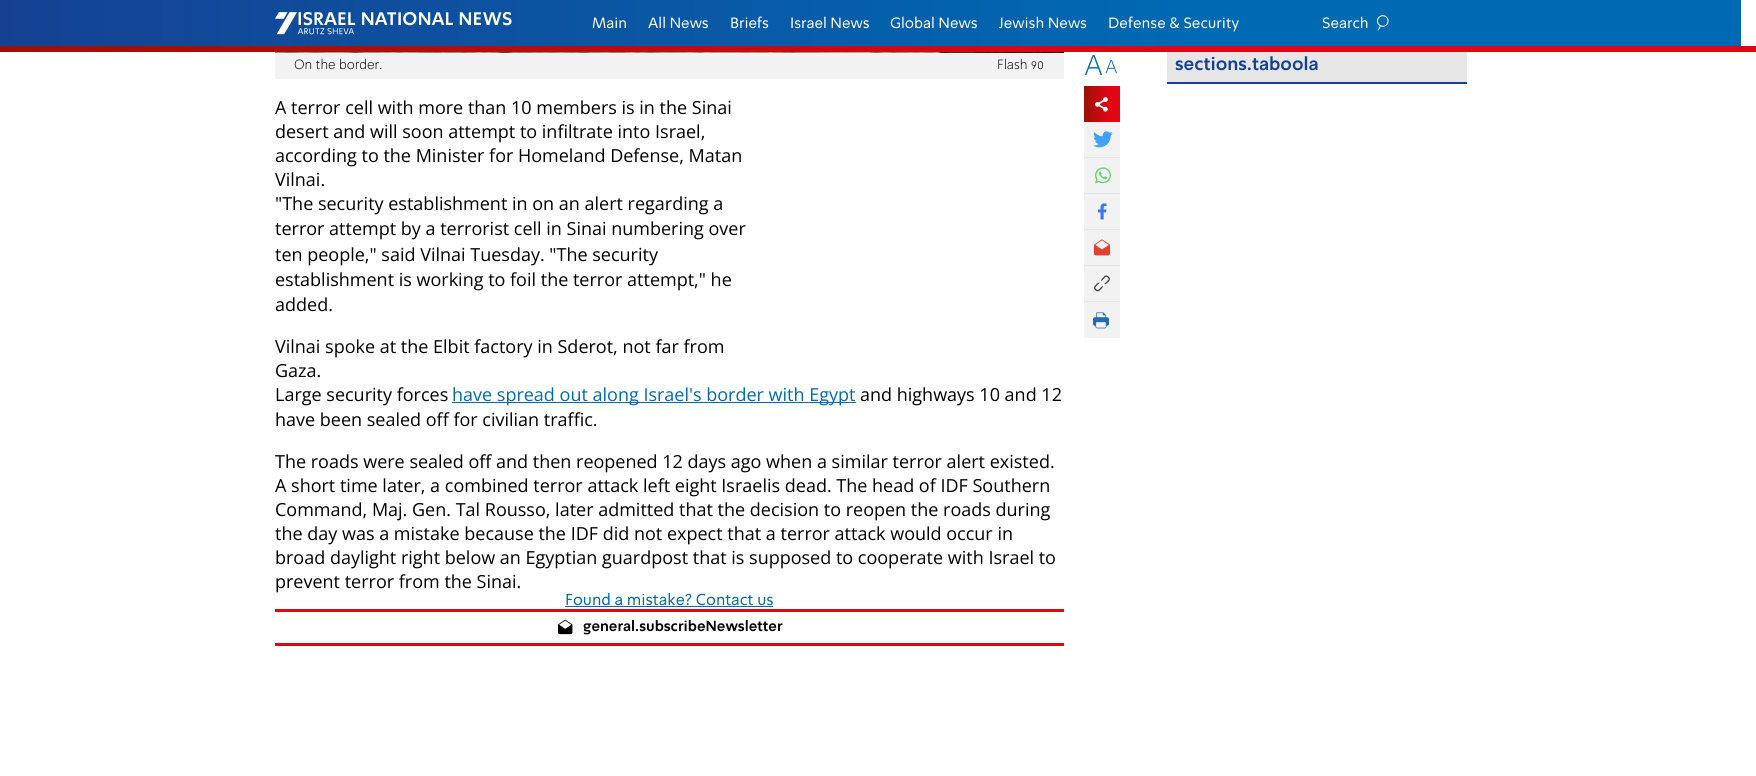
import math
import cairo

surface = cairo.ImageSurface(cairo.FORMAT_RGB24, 1756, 776)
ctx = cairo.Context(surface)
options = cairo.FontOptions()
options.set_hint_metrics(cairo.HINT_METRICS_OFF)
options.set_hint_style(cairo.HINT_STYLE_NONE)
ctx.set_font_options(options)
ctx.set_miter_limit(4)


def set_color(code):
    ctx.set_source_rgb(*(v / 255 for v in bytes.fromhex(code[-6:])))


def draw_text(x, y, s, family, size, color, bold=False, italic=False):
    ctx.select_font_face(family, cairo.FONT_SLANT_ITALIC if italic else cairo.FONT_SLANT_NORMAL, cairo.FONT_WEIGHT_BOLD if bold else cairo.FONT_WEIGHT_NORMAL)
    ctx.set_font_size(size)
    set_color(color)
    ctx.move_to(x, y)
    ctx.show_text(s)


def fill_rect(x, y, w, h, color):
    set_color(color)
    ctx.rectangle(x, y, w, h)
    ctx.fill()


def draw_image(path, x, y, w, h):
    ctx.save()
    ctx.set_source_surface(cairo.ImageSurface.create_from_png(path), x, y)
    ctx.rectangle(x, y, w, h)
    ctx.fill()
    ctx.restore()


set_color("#ffffff")
ctx.paint()
gradient = cairo.LinearGradient(1741, -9, 0, -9)
gradient.add_color_stop_rgba(0.32, 0, 0.412, 0.702, 1)
gradient.add_color_stop_rgba(1, 0.086, 0.255, 0.576, 1)
ctx.set_source(gradient)
ctx.rectangle(0, 0, 1741, 46)
ctx.fill()
draw_image("assets/img1.png", 275, 12, 237, 23)
draw_text(592, 28, "Main", "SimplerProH", 15, "#ffffff")
draw_text(648, 28, "All News", "SimplerProH", 15, "#ffffff")
draw_text(730, 28, "Briefs", "SimplerProH", 15, "#ffffff")
draw_text(790, 28, "Israel News", "SimplerProH", 15, "#ffffff")
draw_text(890, 28, "Global News", "SimplerProH", 15, "#ffffff")
draw_text(999, 28, "Jewish News", "SimplerProH", 15, "#ffffff")
draw_text(1108, 28, "Defense & Security", "SimplerProH", 15, "#ffffff")
draw_text(1322, 28, "Search", "SimplerProH", 15, "#ffffff")
draw_image("assets/img2.png", 1377, 15, 12, 16)
gradient = cairo.LinearGradient(1756, 49, 0, 49)
gradient.add_color_stop_rgba(0.32, 0.886, 0.024, 0.075, 1)
gradient.add_color_stop_rgba(1, 0.608, 0.063, 0.024, 1)
ctx.set_source(gradient)
ctx.rectangle(0, 46, 1756, 6)
ctx.fill()
fill_rect(275, 53, 789, 26, "#f2f2f2")
draw_image("assets/img3.png", 275, 52, 789, 1)
draw_text(294, 69, "On the border.", "SimplerProH Light", 13.75, "#000000")
draw_text(997, 69, "Flash 90", "SimplerProH Light", 13.75, "#000000")
draw_text(275, 114, "A terror cell with more than 10 members is in the Sinai", "Open Sans", 18, "#000000")
draw_text(275, 138, "desert and will soon attempt to infiltrate into Israel,", "Open Sans", 18, "#000000")
draw_text(275, 162, "according to the Minister for Homeland Defense, Matan", "Open Sans", 18, "#000000")
draw_text(275, 186, "Vilnai.", "Open Sans", 18, "#000000")
draw_text(275, 210, "\"The security establishment in on an alert regarding a", "Open Sans", 18, "#000000")
draw_text(275, 235, "terror attempt by a terrorist cell in Sinai numbering over", "Open Sans", 18, "#000000")
draw_text(275, 261, "ten people,\" said Vilnai Tuesday. \"The security", "Open Sans", 18, "#000000")
draw_text(275, 286, "establishment is working to foil the terror attempt,\" he", "Open Sans", 18, "#000000")
draw_text(275, 311, "added.", "Open Sans", 18, "#000000")
draw_text(275, 353, "Vilnai spoke at the Elbit factory in Sderot, not far from", "Open Sans", 18, "#000000")
draw_text(275, 377, "Gaza.", "Open Sans", 18, "#000000")
draw_text(275, 401, "Large security forces", "Open Sans", 18, "#000000")
fill_rect(452, 402, 404, 1, "#0069b3")
draw_text(452, 401, "have spread out along Israel's border with Egypt", "Open Sans", 18, "#0069b3")
draw_text(860, 401, "and highways 10 and 12", "Open Sans", 18, "#000000")
draw_text(275, 426, "have been sealed off for civilian traffic.", "Open Sans", 18, "#000000")
draw_text(275, 468, "The roads were sealed off and then reopened 12 days ago when a similar terror alert existed.", "Open Sans", 18, "#000000")
draw_text(275, 492, "A short time later, a combined terror attack left eight Israelis dead. The head of IDF Southern", "Open Sans", 18, "#000000")
draw_text(275, 516, "Command, Maj. Gen. Tal Rousso, later admitted that the decision to reopen the roads during", "Open Sans", 18, "#000000")
draw_text(275, 540, "the day was a mistake because the IDF did not expect that a terror attack would occur in", "Open Sans", 18, "#000000")
draw_text(275, 564, "broad daylight right below an Egyptian guardpost that is supposed to cooperate with Israel to", "Open Sans", 18, "#000000")
draw_text(275, 588, "prevent terror from the Sinai.", "Open Sans", 18, "#000000")
draw_text(565, 605, "Found a mistake? Contact us", "SimplerProH", 16, "#0069b3")
fill_rect(565, 606, 208, 1, "#0069b3")
fill_rect(275, 609, 789, 3, "#e20613")
fill_rect(275, 643, 789, 3, "#e20613")
draw_image("assets/img4.png", 558, 619, 15, 16)
draw_text(583, 631, "general.subscribeNewsletter", "SimplerProH", 14.4, "#000000", bold=True)
fill_rect(1084, 122, 36, 216, "#f2f2f2")
draw_text(1084, 75, "A", "SimplerProH Light", 29, "#0069b3")
draw_text(1105, 73, "A", "SimplerProH Light", 19, "#0069b3")
gradient = cairo.LinearGradient(1120, 104, 1084, 104)
gradient.add_color_stop_rgba(0.32, 0.886, 0.024, 0.075, 1)
gradient.add_color_stop_rgba(1, 0.608, 0.063, 0.024, 1)
ctx.set_source(gradient)
ctx.rectangle(1084, 86, 36, 36)
ctx.fill()
draw_image("assets/img5.png", 1095, 97, 13, 15)
fill_rect(1084, 157, 36, 1, "#e6e6e6")
draw_image("assets/img6.png", 1093, 131, 20, 17)
fill_rect(1084, 193, 36, 1, "#e6e6e6")
draw_image("assets/img7.png", 1095, 167, 16, 17)
fill_rect(1084, 229, 36, 1, "#e6e6e6")
draw_image("assets/img8.png", 1098, 203, 9, 17)
fill_rect(1084, 265, 36, 1, "#e6e6e6")
draw_image("assets/img9.png", 1094, 239, 16, 17)
fill_rect(1084, 301, 36, 1, "#e6e6e6")
draw_image("assets/img10.png", 1094, 275, 16, 17)
draw_image("assets/img11.png", 1093, 312, 16, 17)
fill_rect(1167, 52, 300, 30, "#e6e6e6")
fill_rect(1167, 82, 300, 2, "#164193")
draw_text(1175, 70, "sections.taboola", "SimplerProH", 18, "#164193", bold=True)
surface.write_to_png("output.png")
